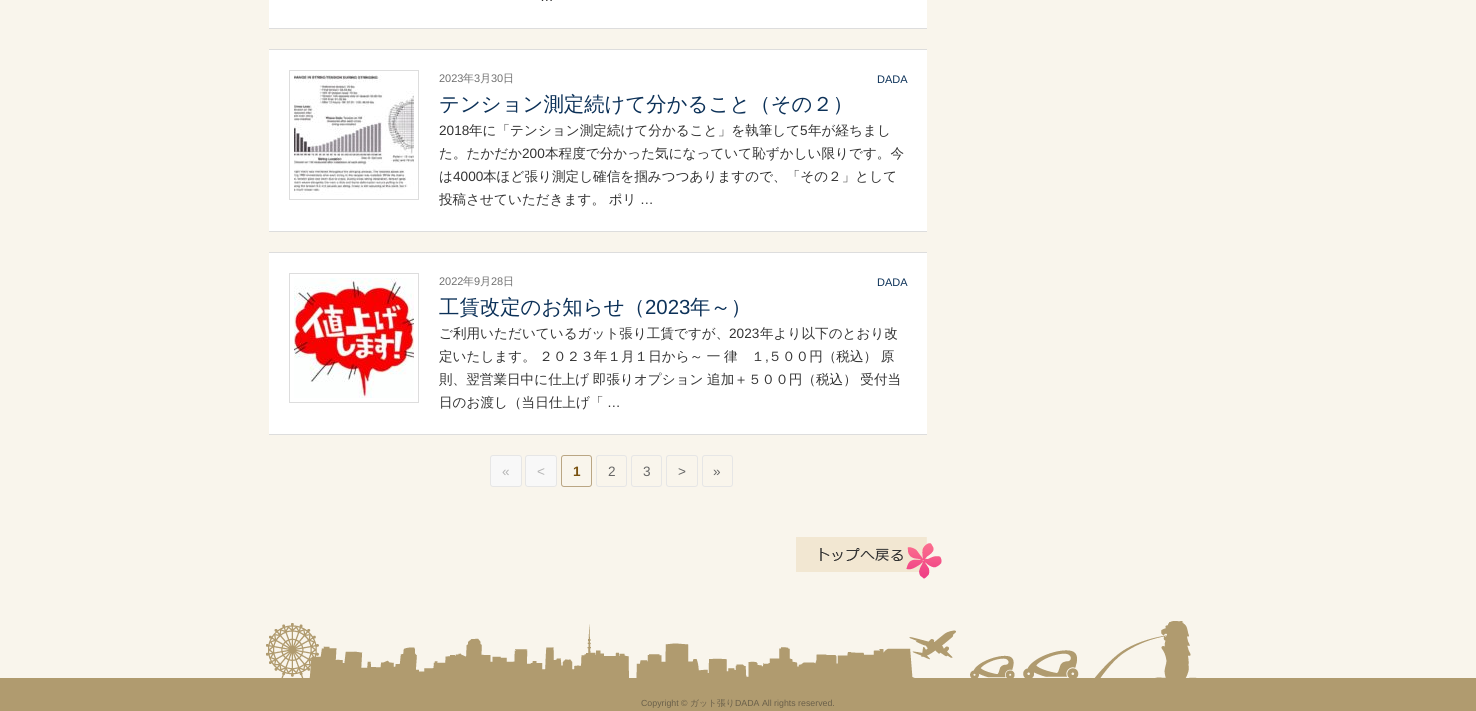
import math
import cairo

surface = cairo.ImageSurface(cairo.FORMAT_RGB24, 1476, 711)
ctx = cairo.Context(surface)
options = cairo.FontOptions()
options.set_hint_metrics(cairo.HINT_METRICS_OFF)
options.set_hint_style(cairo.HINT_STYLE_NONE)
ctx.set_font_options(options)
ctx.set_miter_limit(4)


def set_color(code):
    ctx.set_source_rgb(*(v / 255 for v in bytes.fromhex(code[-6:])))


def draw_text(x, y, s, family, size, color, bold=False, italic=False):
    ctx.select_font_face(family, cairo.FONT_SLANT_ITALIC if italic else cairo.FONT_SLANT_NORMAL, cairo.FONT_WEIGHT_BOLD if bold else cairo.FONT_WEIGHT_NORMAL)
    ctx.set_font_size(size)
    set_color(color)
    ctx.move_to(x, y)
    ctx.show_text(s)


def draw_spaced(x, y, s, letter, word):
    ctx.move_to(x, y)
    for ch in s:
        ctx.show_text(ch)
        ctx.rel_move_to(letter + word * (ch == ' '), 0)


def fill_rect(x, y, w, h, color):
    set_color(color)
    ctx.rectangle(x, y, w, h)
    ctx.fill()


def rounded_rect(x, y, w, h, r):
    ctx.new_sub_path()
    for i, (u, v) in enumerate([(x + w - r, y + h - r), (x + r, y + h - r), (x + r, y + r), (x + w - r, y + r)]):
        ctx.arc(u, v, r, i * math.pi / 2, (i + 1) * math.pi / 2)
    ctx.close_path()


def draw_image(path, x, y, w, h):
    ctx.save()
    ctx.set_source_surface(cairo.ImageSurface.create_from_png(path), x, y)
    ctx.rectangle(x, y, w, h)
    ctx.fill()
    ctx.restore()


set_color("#b09b6f")
ctx.paint()
fill_rect(0, 0, 1476, 678, "#f9f5ec")
fill_rect(269, 0, 658, 28, "#ffffff")
fill_rect(269, 28, 658, 1, "#dddddd")
draw_text(540, 1, "…", "Liberation Sans", 13.6, "#333333")
fill_rect(269, 50, 658, 181, "#ffffff")
fill_rect(269, 49, 658, 1, "#dddddd")
fill_rect(269, 231, 658, 1, "#dddddd")
ctx.rectangle(289.5, 70.5, 129, 129)
ctx.set_line_width(1)
ctx.stroke()
draw_image("assets/img1.png", 294, 75, 120, 120)
draw_text(439, 82, "2023", "Liberation Sans", 11, "#707070")
draw_text(463, 82, "年", "WenQuanYi Zen Hei Medium", 11, "#707070")
draw_text(474, 82, "3", "Liberation Sans", 11, "#707070")
draw_text(480, 82, "月", "WenQuanYi Zen Hei Medium", 11, "#707070")
draw_text(491, 82, "30", "Liberation Sans", 11, "#707070")
draw_text(503, 82, "日", "WenQuanYi Zen Hei Medium", 11, "#707070")
draw_text(877, 83, "DADA", "Liberation Sans", 11, "#0c3158")
draw_text(439, 111, "テンション測定続けて分かること（その２）", "WenQuanYi Zen Hei Medium", 20.4, "#0c3158")
draw_text(439, 135, "2018", "Liberation Sans", 13.6, "#333333")
draw_text(469, 135, "年に「テンション測定続けて分かること」を執筆して", "WenQuanYi Zen Hei Medium", 13.6, "#333333")
draw_text(800, 135, "5", "Liberation Sans", 13.6, "#333333")
draw_text(808, 135, "年が経ちまし", "WenQuanYi Zen Hei Medium", 13.6, "#333333")
draw_text(439, 158, "た。たかだか", "WenQuanYi Zen Hei Medium", 13.6, "#333333")
draw_text(522, 158, "200", "Liberation Sans", 13.6, "#333333")
draw_text(545, 158, "本程度で分かった気になっていて恥ずかしい限りです。今", "WenQuanYi Zen Hei Medium", 13.6, "#333333")
draw_text(439, 181, "は", "WenQuanYi Zen Hei Medium", 13.6, "#333333")
draw_text(453, 181, "4000", "Liberation Sans", 13.6, "#333333")
draw_text(483, 181, "本ほど張り測定し確信を掴みつつありますので、「その２」として", "WenQuanYi Zen Hei Medium", 13.6, "#333333")
draw_spaced(439, 204, "投稿させていただきます。 ポリ", 0, -0.5)
draw_text(640, 204, "…", "Liberation Sans", 13.6, "#333333")
fill_rect(269, 253, 658, 181, "#ffffff")
fill_rect(269, 252, 658, 1, "#dddddd")
fill_rect(269, 434, 658, 1, "#dddddd")
ctx.rectangle(289.5, 273.5, 129, 129)
ctx.stroke()
draw_image("assets/img2.png", 294, 278, 120, 120)
draw_text(439, 285, "2022", "Liberation Sans", 11, "#707070")
draw_text(463, 285, "年", "WenQuanYi Zen Hei Medium", 11, "#707070")
draw_text(474, 285, "9", "Liberation Sans", 11, "#707070")
draw_text(480, 285, "月", "WenQuanYi Zen Hei Medium", 11, "#707070")
draw_text(491, 285, "28", "Liberation Sans", 11, "#707070")
draw_text(503, 285, "日", "WenQuanYi Zen Hei Medium", 11, "#707070")
draw_text(877, 286, "DADA", "Liberation Sans", 11, "#0c3158")
draw_text(439, 314, "工賃改定のお知らせ（", "WenQuanYi Zen Hei Medium", 20.4, "#0c3158")
draw_text(645, 314, "2023", "Liberation Sans", 20.4, "#0c3158")
draw_text(690, 314, "年～）", "WenQuanYi Zen Hei Medium", 20.4, "#0c3158")
draw_text(439, 338, "ご利用いただいているガット張り工賃ですが、", "WenQuanYi Zen Hei Medium", 13.6, "#333333")
draw_text(729, 338, "2023", "Liberation Sans", 13.6, "#333333")
draw_text(760, 338, "年より以下のとおり改", "WenQuanYi Zen Hei Medium", 13.6, "#333333")
draw_spaced(439, 361, "定いたします。 ２０２３年１月１日から～ 一 律　１ ５００円（税込） 原", 0, -0.5)
draw_text(765, 361, ",", "Liberation Sans", 13.6, "#333333")
ctx.select_font_face("WenQuanYi Zen Hei Medium")
draw_spaced(439, 384, "則、翌営業日中に仕上げ 即張りオプション 追加＋５００円（税込） 受付当", 0, -0.5)
draw_text(439, 407, "日のお渡し（当日仕上げ「", "WenQuanYi Zen Hei Medium", 13.6, "#333333")
draw_text(607, 407, "…", "Liberation Sans", 13.6, "#333333")
set_color("#f8f8f8")
rounded_rect(490.5, 455.5, 31, 31, 2.5)
ctx.fill_preserve()
set_color("#e6e6e6")
ctx.stroke()
draw_text(502, 476, "«", "Liberation Sans", 13.6, "#b4b4b4")
set_color("#f8f8f8")
rounded_rect(525.5, 455.5, 31, 31, 2.5)
ctx.fill_preserve()
set_color("#e6e6e6")
ctx.stroke()
draw_text(537, 476, "<", "Liberation Sans", 13.6, "#b4b4b4")
rounded_rect(561.5, 455.5, 30, 31, 2.5)
set_color("#baa684")
ctx.stroke()
draw_text(573, 476, "1", "Liberation Sans", 13.6, "#79510f", bold=True)
rounded_rect(596.5, 455.5, 30, 31, 2.5)
set_color("#e6e6e6")
ctx.stroke()
draw_text(608, 476, "2", "Liberation Sans", 13.6, "#666666")
rounded_rect(631.5, 455.5, 30, 31, 2.5)
set_color("#e6e6e6")
ctx.stroke()
draw_text(643, 476, "3", "Liberation Sans", 13.6, "#666666")
rounded_rect(666.5, 455.5, 31, 31, 2.5)
set_color("#e6e6e6")
ctx.stroke()
draw_text(678, 476, ">", "Liberation Sans", 13.6, "#666666")
rounded_rect(702.5, 455.5, 30, 31, 2.5)
set_color("#e6e6e6")
ctx.stroke()
draw_text(713, 476, "»", "Liberation Sans", 13.6, "#666666")
draw_image("assets/img3.png", 796, 537, 146, 42)
draw_image("assets/img4.png", 266, 621, 931, 57)
draw_text(641, 706, "Copyright ©", "Liberation Sans", 8.8, "#695f49")
draw_text(690, 706, "ガット張り", "WenQuanYi Zen Hei Medium", 8.8, "#695f49")
draw_text(735, 706, "DADA All rights reserved.", "Liberation Sans", 8.8, "#695f49")
surface.write_to_png("output.png")
